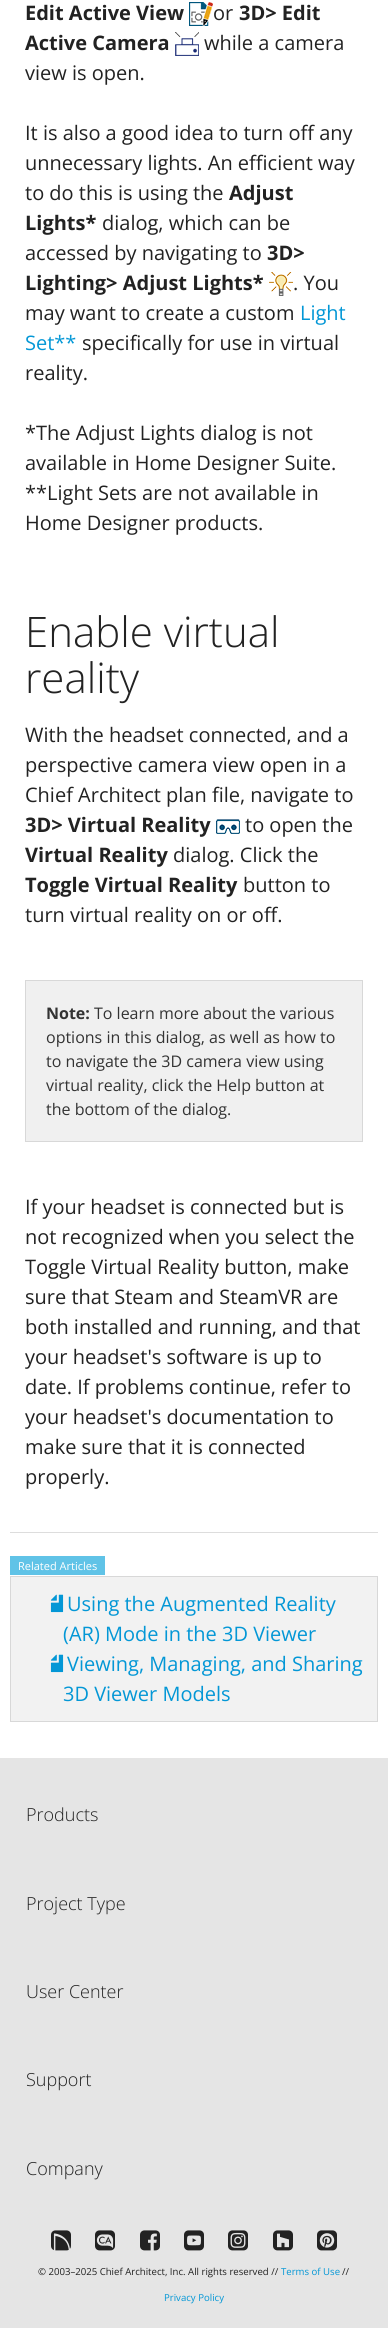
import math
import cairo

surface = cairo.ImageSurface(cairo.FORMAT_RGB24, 388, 2328)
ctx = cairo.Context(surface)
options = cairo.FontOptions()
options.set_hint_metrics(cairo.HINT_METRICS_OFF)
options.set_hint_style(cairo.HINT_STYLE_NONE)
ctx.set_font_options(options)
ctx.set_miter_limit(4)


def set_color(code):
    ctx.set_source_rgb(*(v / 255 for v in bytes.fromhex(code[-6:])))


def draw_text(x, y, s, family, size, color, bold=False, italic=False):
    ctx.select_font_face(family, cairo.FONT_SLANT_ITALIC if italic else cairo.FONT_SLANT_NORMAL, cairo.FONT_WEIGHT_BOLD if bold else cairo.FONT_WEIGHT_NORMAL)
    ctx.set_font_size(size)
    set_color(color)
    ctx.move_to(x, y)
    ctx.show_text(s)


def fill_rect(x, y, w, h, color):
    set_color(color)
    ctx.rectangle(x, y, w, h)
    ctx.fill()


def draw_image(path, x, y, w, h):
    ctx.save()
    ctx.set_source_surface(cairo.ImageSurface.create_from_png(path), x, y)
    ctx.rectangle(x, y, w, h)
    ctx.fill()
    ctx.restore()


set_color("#e5e5e5")
ctx.paint()
fill_rect(0, 0, 388, 1758, "#ffffff")
draw_text(25, 20, "Edit Active View", "Open Sans", 20, "#222222", bold=True)
draw_image("assets/img1.png", 189, 2, 24, 24)
draw_text(213, 20, "or", "Open Sans", 20, "#222222")
draw_text(239, 20, "3D> Edit", "Open Sans", 20, "#222222", bold=True)
draw_text(25, 50, "Active Camera", "Open Sans", 20, "#222222", bold=True)
draw_image("assets/img2.png", 175, 32, 24, 24)
draw_text(204, 50, "while a camera", "Open Sans", 20, "#222222")
draw_text(25, 80, "view is open.", "Open Sans", 20, "#222222")
draw_text(25, 140, "It is also a good idea to turn off any", "Open Sans", 20, "#222222")
draw_text(25, 170, "unnecessary lights. An efficient way", "Open Sans", 20, "#222222")
draw_text(25, 200, "to do this is using the", "Open Sans", 20, "#222222")
draw_text(229, 200, "Adjust", "Open Sans", 20, "#222222", bold=True)
draw_text(25, 230, "Lights*", "Open Sans", 20, "#222222", bold=True)
draw_text(102, 230, "dialog, which can be", "Open Sans", 20, "#222222")
draw_text(25, 260, "accessed by navigating to", "Open Sans", 20, "#222222")
draw_text(267, 260, "3D>", "Open Sans", 20, "#222222", bold=True)
draw_text(25, 290, "Lighting> Adjust Lights*", "Open Sans", 20, "#222222", bold=True)
draw_image("assets/img3.png", 269, 272, 24, 24)
draw_text(293, 290, ". You", "Open Sans", 20, "#222222")
draw_text(25, 320, "may want to create a custom", "Open Sans", 20, "#222222")
draw_text(300, 320, "Light", "Open Sans", 20, "#0397d6")
draw_text(25, 350, "Set**", "Open Sans", 20, "#0397d6")
draw_text(82, 350, "specifically for use in virtual", "Open Sans", 20, "#222222")
draw_text(25, 380, "reality.", "Open Sans", 20, "#222222")
draw_text(25, 440, "*The Adjust Lights dialog is not", "Open Sans", 20, "#222222")
draw_text(25, 470, "available in Home Designer Suite.", "Open Sans", 20, "#222222")
draw_text(25, 500, "**Light Sets are not available in", "Open Sans", 20, "#222222")
draw_text(25, 530, "Home Designer products.", "Open Sans", 20, "#222222")
draw_text(25, 647, "Enable virtual", "Open Sans Light", 42, "#222222")
draw_text(25, 693, "reality", "Open Sans Light", 42, "#222222")
draw_text(25, 742, "With the headset connected, and a", "Open Sans", 20, "#222222")
draw_text(25, 772, "perspective camera view open in a", "Open Sans", 20, "#222222")
draw_text(25, 802, "Chief Architect plan file, navigate to", "Open Sans", 20, "#222222")
draw_text(25, 832, "3D> Virtual Reality", "Open Sans", 20, "#222222", bold=True)
draw_image("assets/img4.png", 216, 819, 24, 15)
draw_text(245, 832, "to open the", "Open Sans", 20, "#222222")
draw_text(25, 862, "Virtual Reality", "Open Sans", 20, "#222222", bold=True)
draw_text(173, 862, "dialog. Click the", "Open Sans", 20, "#222222")
draw_text(25, 892, "Toggle Virtual Reality", "Open Sans", 20, "#222222", bold=True)
draw_text(243, 892, "button to", "Open Sans", 20, "#222222")
draw_text(25, 922, "turn virtual reality on or off.", "Open Sans", 20, "#222222")
set_color("#f0f0f0")
ctx.rectangle(25.5, 980.5, 337, 161)
ctx.fill_preserve()
set_color("#d8d8d8")
ctx.set_line_width(1)
ctx.stroke()
draw_text(46, 1019, "Note:", "Open Sans", 16, "#333333", bold=True)
draw_text(94, 1019, "To learn more about the various", "Open Sans", 16, "#333333")
draw_text(46, 1043, "options in this dialog, as well as how to", "Open Sans", 16, "#333333")
draw_text(46, 1067, "to navigate the 3D camera view using", "Open Sans", 16, "#333333")
draw_text(46, 1091, "virtual reality, click the Help button at", "Open Sans", 16, "#333333")
draw_text(46, 1115, "the bottom of the dialog.", "Open Sans", 16, "#333333")
draw_text(25, 1214, "If your headset is connected but is", "Open Sans", 20, "#222222")
draw_text(25, 1244, "not recognized when you select the", "Open Sans", 20, "#222222")
draw_text(25, 1274, "Toggle Virtual Reality button, make", "Open Sans", 20, "#222222")
draw_text(25, 1304, "sure that Steam and SteamVR are", "Open Sans", 20, "#222222")
draw_text(25, 1334, "both installed and running, and that", "Open Sans", 20, "#222222")
draw_text(25, 1364, "your headset's software is up to", "Open Sans", 20, "#222222")
draw_text(25, 1394, "date. If problems continue, refer to", "Open Sans", 20, "#222222")
draw_text(25, 1424, "your headset's documentation to", "Open Sans", 20, "#222222")
draw_text(25, 1454, "make sure that it is connected", "Open Sans", 20, "#222222")
draw_text(25, 1484, "properly.", "Open Sans", 20, "#222222")
fill_rect(10, 1532, 368, 1, "#dddddd")
fill_rect(10, 1556, 95, 19, "#60c3e7")
draw_text(18, 1570, "Related Articles", "Open Sans", 11, "#ffffff")
set_color("#f2f2f2")
ctx.rectangle(10.5, 1576.5, 367, 145)
ctx.fill_preserve()
set_color("#d8d8d8")
ctx.stroke()
draw_image("assets/img5.png", 50, 1594, 14, 19)
draw_text(67, 1611, "Using the Augmented Reality", "Open Sans", 20, "#0397d6")
draw_text(63, 1641, "(AR) Mode in the 3D Viewer", "Open Sans", 20, "#0397d6")
draw_image("assets/img5.png", 50, 1654, 14, 19)
draw_text(67, 1671, "Viewing, Managing, and Sharing", "Open Sans", 20, "#0397d6")
draw_text(63, 1701, "3D Viewer Models", "Open Sans", 20, "#0397d6")
draw_text(26, 1821, "Products", "Open Sans Light", 18, "#222222")
draw_text(26, 1910, "Project Type", "Open Sans Light", 18, "#222222")
draw_text(26, 1998, "User Center", "Open Sans Light", 18, "#222222")
draw_text(26, 2086, "Support", "Open Sans Light", 18, "#222222")
draw_text(26, 2175, "Company", "Open Sans Light", 18, "#222222")
draw_image("assets/img6.png", 51, 2230, 20, 21)
draw_image("assets/img7.png", 95, 2230, 20, 21)
draw_image("assets/img8.png", 140, 2230, 20, 21)
draw_image("assets/img9.png", 184, 2230, 20, 21)
draw_image("assets/img10.png", 228, 2230, 20, 21)
draw_image("assets/img11.png", 273, 2230, 20, 21)
draw_image("assets/img12.png", 317, 2230, 20, 21)
draw_text(38, 2275, "© 2003–2025 Chief Architect, Inc. All rights reserved //", "Open Sans", 9.6, "#222222")
draw_text(281, 2275, "Terms of Use", "Open Sans", 9.6, "#0397d6")
draw_text(342, 2275, "//", "Open Sans", 9.6, "#222222")
draw_text(164, 2301, "Privacy Policy", "Open Sans", 9.6, "#0397d6")
surface.write_to_png("output.png")
